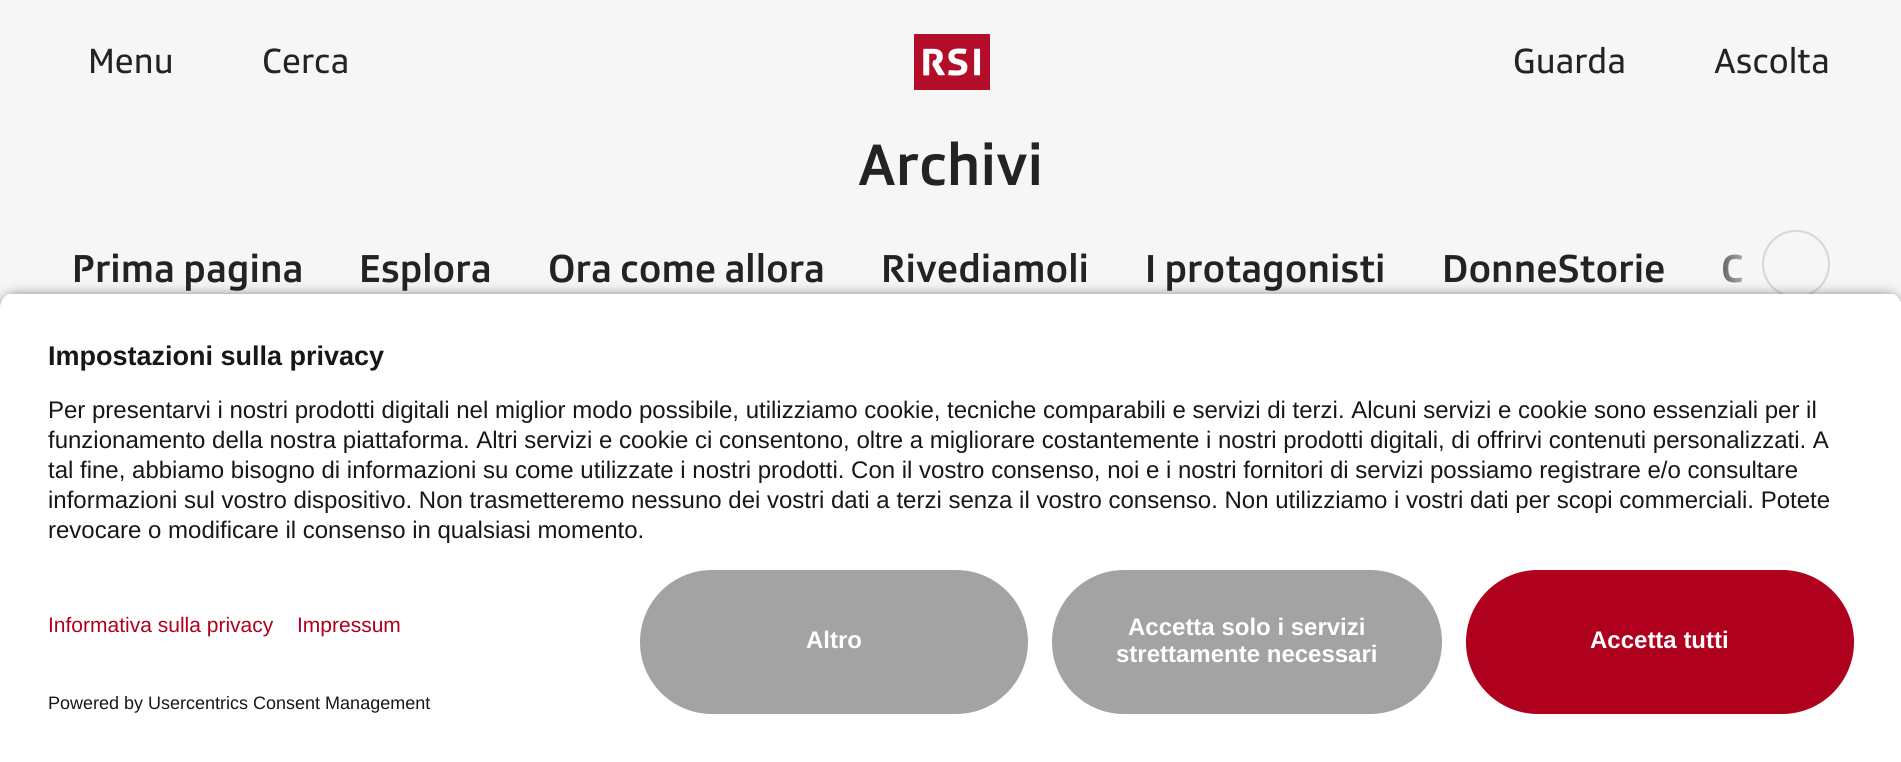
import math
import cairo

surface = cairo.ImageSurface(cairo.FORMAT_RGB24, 1901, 762)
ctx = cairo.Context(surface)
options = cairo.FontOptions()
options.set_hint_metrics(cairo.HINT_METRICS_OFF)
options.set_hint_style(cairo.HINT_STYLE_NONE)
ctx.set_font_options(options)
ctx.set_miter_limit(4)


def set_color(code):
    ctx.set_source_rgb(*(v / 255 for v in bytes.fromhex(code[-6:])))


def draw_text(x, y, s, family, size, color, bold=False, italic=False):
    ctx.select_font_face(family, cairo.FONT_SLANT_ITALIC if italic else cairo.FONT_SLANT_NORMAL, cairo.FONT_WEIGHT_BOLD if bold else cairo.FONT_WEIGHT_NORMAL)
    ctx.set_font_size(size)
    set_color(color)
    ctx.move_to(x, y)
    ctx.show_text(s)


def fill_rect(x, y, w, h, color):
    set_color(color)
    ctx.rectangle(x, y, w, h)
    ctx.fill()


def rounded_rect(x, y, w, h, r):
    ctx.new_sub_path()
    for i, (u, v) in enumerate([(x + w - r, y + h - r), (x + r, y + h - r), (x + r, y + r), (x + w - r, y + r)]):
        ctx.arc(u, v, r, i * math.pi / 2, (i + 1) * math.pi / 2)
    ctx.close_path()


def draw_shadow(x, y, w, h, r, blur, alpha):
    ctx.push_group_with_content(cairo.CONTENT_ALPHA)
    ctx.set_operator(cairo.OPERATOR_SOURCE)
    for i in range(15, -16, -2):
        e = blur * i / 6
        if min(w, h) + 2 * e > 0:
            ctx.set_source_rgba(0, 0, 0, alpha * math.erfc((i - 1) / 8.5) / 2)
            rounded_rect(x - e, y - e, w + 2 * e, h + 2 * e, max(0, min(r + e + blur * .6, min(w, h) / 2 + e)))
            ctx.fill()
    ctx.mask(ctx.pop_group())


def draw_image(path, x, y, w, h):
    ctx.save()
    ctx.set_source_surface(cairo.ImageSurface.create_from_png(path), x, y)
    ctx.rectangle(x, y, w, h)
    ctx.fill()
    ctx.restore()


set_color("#f6f6f6")
ctx.paint()
draw_text(88, 73, "Menu", "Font", 36, "#232323")
draw_text(262, 73, "Cerca", "Font", 36, "#232323")
draw_image("assets/img1.png", 914, 34, 76, 56)
draw_text(1513, 73, "Guarda", "Font", 36, "#232323")
draw_text(1714, 73, "Ascolta", "Font", 36, "#232323")
draw_text(858, 185, "Archivi", "Font Medium", 60, "#232323")
draw_text(72, 282, "Prima pagina", "Font Medium", 40, "#232323")
draw_text(359, 282, "Esplora", "Font Medium", 40, "#232323")
draw_text(548, 282, "Ora come allora", "Font Medium", 40, "#232323")
draw_text(881, 282, "Rivediamoli", "Font Medium", 40, "#232323")
draw_text(1145, 282, "I protagonisti", "Font Medium", 40, "#232323")
draw_text(1442, 282, "DonneStorie", "Font Medium", 40, "#232323")
draw_text(1721, 282, "C", "Font Medium", 40, "#232323")
ctx.new_path()
ctx.arc(1796, 264, 33, 0, 2 * math.pi)
ctx.set_source_rgba(0.137, 0.137, 0.137, 0.15)
ctx.stroke()
gradient = cairo.LinearGradient(1830, 270, 1702, 270)
gradient.add_color_stop_rgba(0, 0.965, 0.965, 0.965, 1)
gradient.add_color_stop_rgba(0.5, 0.965, 0.965, 0.965, 1)
gradient.add_color_stop_rgba(1, 0.965, 0.965, 0.965, 0)
ctx.set_source(gradient)
ctx.rectangle(1723, 254, 20, 29)
ctx.fill()
set_color("#000000")
draw_shadow(0, 298, 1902, 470, 16, 7, 0.8)
ctx.save()
ctx.new_path()
ctx.move_to(16, 292)
ctx.line_to(1886, 292)
ctx.curve_to(1895, 292, 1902, 299, 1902, 308)
ctx.line_to(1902, 554)
ctx.line_to(0, 554)
ctx.line_to(0, 308)
ctx.curve_to(0, 299, 7, 292, 16, 292)
ctx.close_path()
ctx.clip()
fill_rect(0, 294, 1901, 260, "#ffffff")
ctx.restore()
draw_text(48, 365, "Impostazioni sulla privacy", "Liberation Sans", 27, "#171717", bold=True)
draw_text(48, 418, "Per presentarvi i nostri prodotti digitali nel miglior modo possibile, utilizziamo cookie, tecniche comparabili e servizi di terzi. Alcuni servizi e cookie sono essenziali per il", "Liberation Sans", 24, "#171717")
draw_text(48, 448, "funzionamento della nostra piattaforma. Altri servizi e cookie ci consentono, oltre a migliorare costantemente i nostri prodotti digitali, di offrirvi contenuti personalizzati. A", "Liberation Sans", 24, "#171717")
draw_text(48, 478, "tal fine, abbiamo bisogno di informazioni su come utilizzate i nostri prodotti. Con il vostro consenso, noi e i nostri fornitori di servizi possiamo registrare e/o consultare", "Liberation Sans", 24, "#171717")
draw_text(48, 508, "informazioni sul vostro dispositivo. Non trasmetteremo nessuno dei vostri dati a terzi senza il vostro consenso. Non utilizziamo i vostri dati per scopi commerciali. Potete", "Liberation Sans", 24, "#171717")
draw_text(48, 538, "revocare o modificare il consenso in qualsiasi momento.", "Liberation Sans", 24, "#171717")
fill_rect(0, 554, 1901, 208, "#ffffff")
draw_text(48, 632, "Informativa sulla privacy", "Liberation Sans", 21, "#af001e")
draw_text(297, 632, "Impressum", "Liberation Sans", 21, "#af001e")
draw_text(48, 709, "Powered by Usercentrics Consent Management", "Liberation Sans", 18, "#171717")
set_color("#a3a3a3")
rounded_rect(640, 570, 388, 144, 72)
ctx.fill()
draw_text(806, 648, "Altro", "Liberation Sans", 24, "#ffffff", bold=True)
set_color("#a3a3a3")
rounded_rect(1052, 570, 390, 144, 72)
ctx.fill()
draw_text(1128, 635, "Accetta solo i servizi", "Liberation Sans", 24, "#ffffff", bold=True)
draw_text(1116, 662, "strettamente necessari", "Liberation Sans", 24, "#ffffff", bold=True)
set_color("#af001e")
rounded_rect(1466, 570, 388, 144, 72)
ctx.fill()
draw_text(1590, 648, "Accetta tutti", "Liberation Sans", 24, "#ffffff", bold=True)
surface.write_to_png("output.png")
